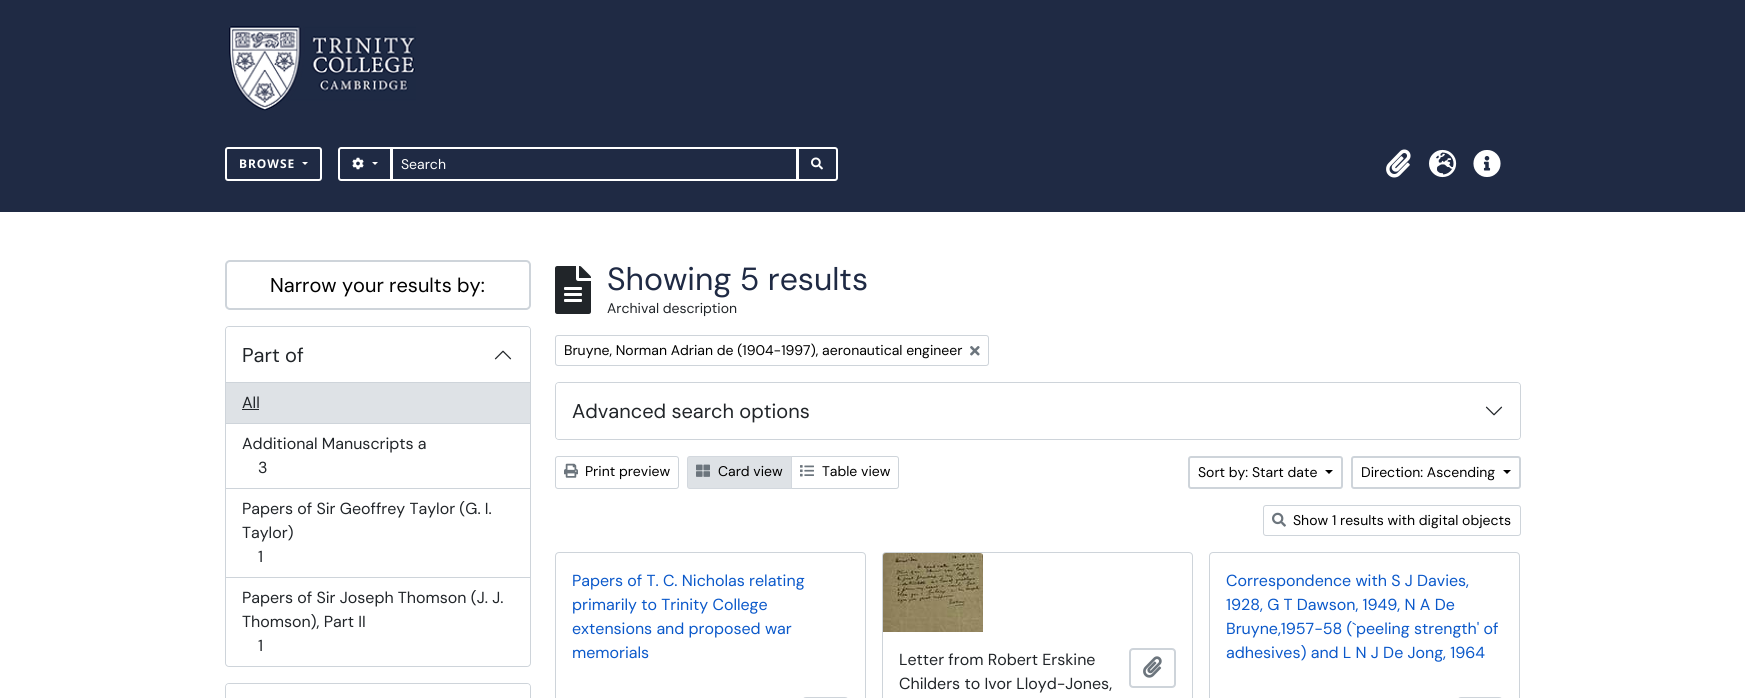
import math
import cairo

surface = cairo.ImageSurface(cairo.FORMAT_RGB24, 1745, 698)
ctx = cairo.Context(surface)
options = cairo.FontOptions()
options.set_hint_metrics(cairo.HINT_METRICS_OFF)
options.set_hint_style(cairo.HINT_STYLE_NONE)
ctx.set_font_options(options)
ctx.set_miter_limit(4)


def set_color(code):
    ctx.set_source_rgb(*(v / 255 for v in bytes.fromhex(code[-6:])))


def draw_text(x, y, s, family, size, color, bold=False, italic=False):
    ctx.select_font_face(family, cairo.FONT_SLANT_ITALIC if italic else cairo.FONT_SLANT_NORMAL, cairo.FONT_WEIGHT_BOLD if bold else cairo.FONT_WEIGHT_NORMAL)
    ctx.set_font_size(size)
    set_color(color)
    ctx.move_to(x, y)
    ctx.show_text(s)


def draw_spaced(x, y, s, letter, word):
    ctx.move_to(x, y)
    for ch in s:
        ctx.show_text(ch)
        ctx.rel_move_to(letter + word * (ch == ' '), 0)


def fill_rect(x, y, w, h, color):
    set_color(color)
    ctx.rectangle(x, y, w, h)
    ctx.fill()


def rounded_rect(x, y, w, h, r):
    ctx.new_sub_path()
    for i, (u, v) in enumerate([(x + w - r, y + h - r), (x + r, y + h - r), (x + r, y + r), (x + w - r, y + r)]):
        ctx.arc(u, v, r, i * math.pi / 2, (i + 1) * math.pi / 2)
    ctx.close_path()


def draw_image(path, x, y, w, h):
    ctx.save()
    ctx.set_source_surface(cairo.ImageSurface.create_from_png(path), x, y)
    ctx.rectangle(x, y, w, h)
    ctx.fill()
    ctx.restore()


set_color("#ffffff")
ctx.paint()
fill_rect(0, 0, 1745, 10, "#1f2a44")
fill_rect(0, 10, 1745, 202, "#1f2a44")
draw_image("assets/img1.png", 229, 26, 187, 85)
rounded_rect(226, 148, 95, 32, 2)
set_color("#ffffff")
ctx.stroke()
ctx.select_font_face("Noto Sans", cairo.FONT_SLANT_NORMAL, cairo.FONT_WEIGHT_BOLD)
ctx.set_font_size(12)
draw_spaced(239, 168, "BROWSE", 1, 0)
ctx.new_path()
ctx.move_to(302, 162)
ctx.line_to(308, 162)
ctx.line_to(305, 165)
ctx.close_path()
ctx.fill()
ctx.rectangle(392, 148, 405, 32)
ctx.stroke()
set_color("#1f2a44")
ctx.new_path()
ctx.move_to(341, 148)
ctx.line_to(391, 148)
ctx.line_to(391, 180)
ctx.line_to(341, 180)
ctx.curve_to(340, 180, 339, 179, 339, 178)
ctx.line_to(339, 150)
ctx.curve_to(339, 149, 340, 148, 341, 148)
ctx.close_path()
ctx.fill_preserve()
set_color("#ffffff")
ctx.stroke()
draw_image("assets/img2.png", 352, 157, 12, 13)
ctx.new_path()
ctx.move_to(372, 162)
ctx.line_to(378, 162)
ctx.line_to(375, 165)
ctx.close_path()
ctx.fill()
draw_text(401, 169, "Search", "DM Sans", 14, "#ffffff")
set_color("#1f2a44")
ctx.new_path()
ctx.move_to(798, 148)
ctx.line_to(835, 148)
ctx.curve_to(836, 148, 837, 149, 837, 150)
ctx.line_to(837, 178)
ctx.curve_to(837, 179, 836, 180, 835, 180)
ctx.line_to(798, 180)
ctx.close_path()
ctx.fill_preserve()
set_color("#ffffff")
ctx.stroke()
draw_image("assets/img3.png", 811, 157, 12, 13)
draw_image("assets/img4.png", 1386, 149, 25, 29)
draw_image("assets/img5.png", 1429, 149, 28, 29)
draw_image("assets/img6.png", 1473, 150, 28, 27)
rounded_rect(226, 261, 304, 48, 4)
set_color("#ced4da")
ctx.stroke()
draw_text(270, 292, "Narrow your results by:", "DM Sans", 20, "#000000")
rounded_rect(225.5, 326.5, 305, 340, 3.5)
set_color("#ced4da")
ctx.set_line_width(1)
ctx.stroke()
set_color("#ffffff")
ctx.new_path()
ctx.move_to(229, 327)
ctx.line_to(527, 327)
ctx.curve_to(528.5, 327, 530, 328.5, 530, 330)
ctx.line_to(530, 383)
ctx.line_to(226, 383)
ctx.line_to(226, 330)
ctx.curve_to(226, 328.5, 227.5, 327, 229, 327)
ctx.close_path()
ctx.fill()
fill_rect(226, 382, 304, 1, "#ced4da")
draw_text(242, 362, "Part of", "DM Sans", 20, "#212529")
draw_image("assets/img7.png", 494, 350, 18, 10)
fill_rect(226, 383, 304, 40, "#dee2e6")
fill_rect(226, 423, 304, 1, "#ced4da")
draw_text(242, 408, "All", "DM Sans", 16, "#212529")
fill_rect(242, 409, 17, 1, "#212529")
fill_rect(226, 488, 304, 1, "#ced4da")
draw_text(242, 449, "Additional Manuscripts a", "DM Sans", 16, "#212529")
draw_text(258, 473, "3", "DM Sans", 16, "#212529")
fill_rect(226, 577, 304, 1, "#ced4da")
draw_text(242, 514, "Papers of Sir Geoffrey Taylor (G. I.", "DM Sans", 16, "#212529")
draw_text(242, 538, "Taylor)", "DM Sans", 16, "#212529")
draw_text(258, 562, "1", "DM Sans", 16, "#212529")
set_color("#ffffff")
ctx.new_path()
ctx.move_to(226, 578)
ctx.line_to(530, 578)
ctx.line_to(530, 662)
ctx.curve_to(530, 664, 528, 666, 526, 666)
ctx.line_to(230, 666)
ctx.curve_to(228, 666, 226, 664, 226, 662)
ctx.close_path()
ctx.fill()
draw_text(242, 603, "Papers of Sir Joseph Thomson (J. J.", "DM Sans", 16, "#212529")
draw_text(242, 627, "Thomson), Part II", "DM Sans", 16, "#212529")
draw_text(258, 651, "1", "DM Sans", 16, "#212529")
rounded_rect(225.5, 683.5, 305, 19, 3.5)
set_color("#ced4da")
ctx.stroke()
set_color("#ffffff")
ctx.new_path()
ctx.move_to(229, 684)
ctx.line_to(527, 684)
ctx.curve_to(528.5, 684, 530, 685.5, 530, 687)
ctx.line_to(530, 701)
ctx.line_to(226, 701)
ctx.line_to(226, 687)
ctx.curve_to(226, 685.5, 227.5, 684, 229, 684)
ctx.close_path()
ctx.fill()
draw_image("assets/img8.png", 555, 266, 36, 48)
draw_text(607, 290, "Showing 5 results", "DM Sans", 32, "#1f2a44")
draw_text(607, 313, "Archival description", "DM Sans", 14, "#212529")
rounded_rect(555.5, 335.5, 433, 30, 2.5)
set_color("#ced4da")
ctx.stroke()
draw_text(564, 355, "Bruyne, Norman Adrian de (1904-1997), aeronautical engineer", "DM Sans", 14, "#000000")
draw_image("assets/img9.png", 970, 346, 10, 10)
rounded_rect(555.5, 382.5, 965, 57, 3.5)
set_color("#ced4da")
ctx.stroke()
set_color("#ffffff")
rounded_rect(556, 383, 964, 56, 3)
ctx.fill()
draw_text(572, 418, "Advanced search options", "DM Sans", 20, "#212529")
draw_image("assets/img10.png", 1485, 406, 18, 10)
rounded_rect(555.5, 456.5, 123, 32, 2.5)
set_color("#ced4da")
ctx.stroke()
draw_image("assets/img11.png", 564, 463, 14, 15)
draw_text(585, 476, "Print preview", "DM Sans", 14, "#000000")
ctx.new_path()
ctx.move_to(791.5, 456.5)
ctx.line_to(896, 456.5)
ctx.curve_to(897.5, 456.5, 898.5, 457.5, 898.5, 459)
ctx.line_to(898.5, 486)
ctx.curve_to(898.5, 487.5, 897.5, 488.5, 896, 488.5)
ctx.line_to(791.5, 488.5)
ctx.close_path()
set_color("#ced4da")
ctx.stroke()
set_color("#dee2e6")
ctx.new_path()
ctx.move_to(690, 456.5)
ctx.line_to(791.5, 456.5)
ctx.line_to(791.5, 488.5)
ctx.line_to(690, 488.5)
ctx.curve_to(688.5, 488.5, 687.5, 487.5, 687.5, 486)
ctx.line_to(687.5, 459)
ctx.curve_to(687.5, 457.5, 688.5, 456.5, 690, 456.5)
ctx.close_path()
ctx.fill_preserve()
set_color("#d3d8de")
ctx.stroke()
draw_image("assets/img12.png", 696, 464, 14, 13)
draw_text(718, 476, "Card view", "DM Sans", 14, "#000000")
draw_image("assets/img13.png", 800, 465, 14, 12)
draw_text(822, 476, "Table view", "DM Sans", 14, "#000000")
rounded_rect(1189, 457, 153, 31, 2)
set_color("#ced4da")
ctx.set_line_width(2)
ctx.stroke()
draw_text(1198, 477, "Sort by: Start date", "DM Sans", 14, "#000000")
ctx.new_path()
ctx.move_to(1325, 470)
ctx.line_to(1333, 470)
ctx.line_to(1329, 474)
ctx.close_path()
ctx.fill()
rounded_rect(1352, 457, 168, 31, 2)
set_color("#ced4da")
ctx.stroke()
draw_text(1361, 477, "Direction: Ascending", "DM Sans", 14, "#000000")
ctx.new_path()
ctx.move_to(1503, 470)
ctx.line_to(1511, 470)
ctx.line_to(1507, 474)
ctx.close_path()
ctx.fill()
rounded_rect(1263.5, 505.5, 257, 30, 2.5)
set_color("#ced4da")
ctx.set_line_width(1)
ctx.stroke()
draw_image("assets/img14.png", 1272, 512, 14, 15)
draw_text(1293, 525, "Show 1 results with digital objects", "DM Sans", 14, "#000000")
rounded_rect(555.5, 552.5, 310, 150, 3.5)
set_color("#ced4da")
ctx.stroke()
draw_text(572, 586, "Papers of T. C. Nicholas relating", "DM Sans", 16, "#0a58ca")
draw_text(572, 610, "primarily to Trinity College", "DM Sans", 16, "#0a58ca")
draw_text(572, 634, "extensions and proposed war", "DM Sans", 16, "#0a58ca")
draw_text(572, 658, "memorials", "DM Sans", 16, "#0a58ca")
rounded_rect(803, 698, 45, 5, 3)
set_color("#ced4da")
ctx.set_line_width(2)
ctx.stroke()
rounded_rect(1209.5, 552.5, 310, 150, 3.5)
ctx.set_line_width(1)
ctx.stroke()
draw_text(1226, 586, "Correspondence with S J Davies,", "DM Sans", 16, "#0a58ca")
draw_text(1226, 610, "1928, G T Dawson, 1949, N A De", "DM Sans", 16, "#0a58ca")
draw_text(1226, 634, "Bruyne,1957-58 (`peeling strength' of", "DM Sans", 16, "#0a58ca")
draw_text(1226, 658, "adhesives) and L N J De Jong, 1964", "DM Sans", 16, "#0a58ca")
rounded_rect(1458, 698, 44, 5, 3)
set_color("#ced4da")
ctx.set_line_width(2)
ctx.stroke()
rounded_rect(882.5, 552.5, 310, 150, 3.5)
ctx.set_line_width(1)
ctx.stroke()
draw_image("assets/img15.png", 883, 553, 100, 79)
draw_text(899, 665, "Letter from Robert Erskine", "DM Sans", 16, "#212529")
draw_text(899, 689, "Childers to Ivor Lloyd-Jones,", "DM Sans", 16, "#212529")
rounded_rect(1130, 649, 45, 38, 3)
set_color("#ced4da")
ctx.set_line_width(2)
ctx.stroke()
draw_image("assets/img16.png", 1143, 656, 19, 22)
surface.write_to_png("output.png")
